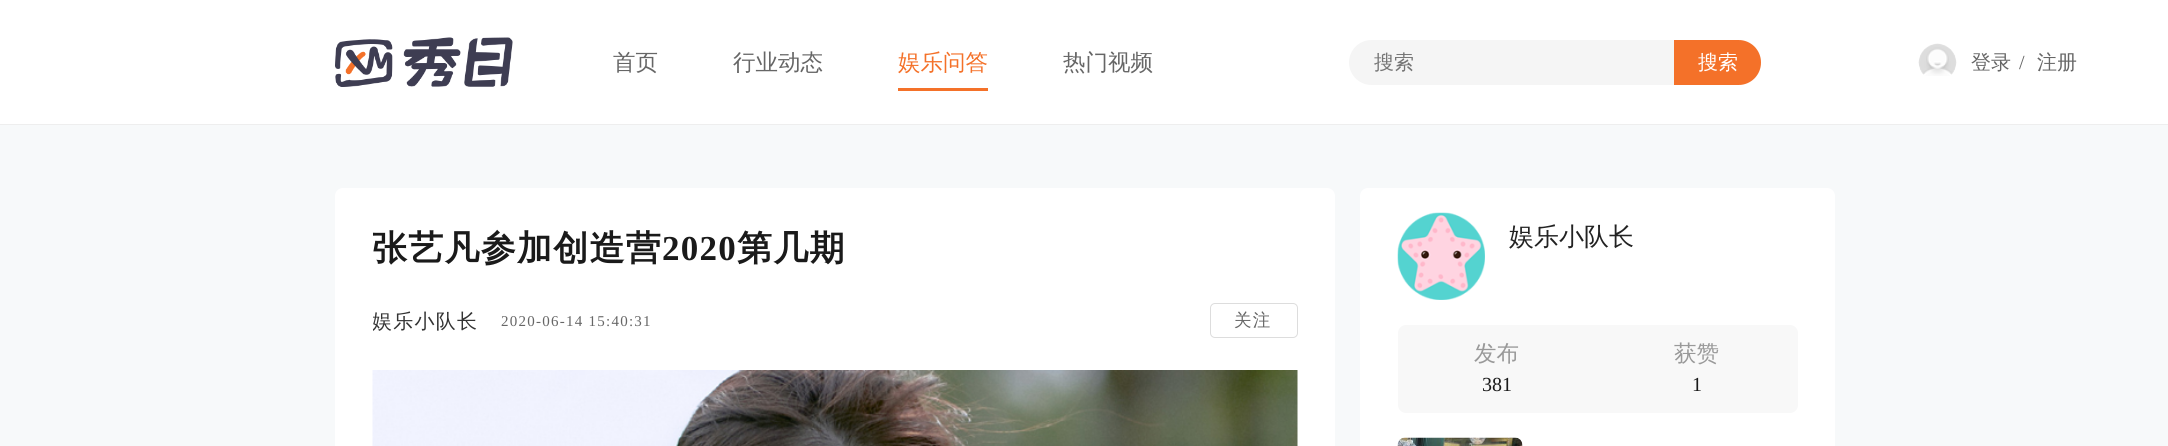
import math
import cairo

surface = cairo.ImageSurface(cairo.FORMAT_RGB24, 2168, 446)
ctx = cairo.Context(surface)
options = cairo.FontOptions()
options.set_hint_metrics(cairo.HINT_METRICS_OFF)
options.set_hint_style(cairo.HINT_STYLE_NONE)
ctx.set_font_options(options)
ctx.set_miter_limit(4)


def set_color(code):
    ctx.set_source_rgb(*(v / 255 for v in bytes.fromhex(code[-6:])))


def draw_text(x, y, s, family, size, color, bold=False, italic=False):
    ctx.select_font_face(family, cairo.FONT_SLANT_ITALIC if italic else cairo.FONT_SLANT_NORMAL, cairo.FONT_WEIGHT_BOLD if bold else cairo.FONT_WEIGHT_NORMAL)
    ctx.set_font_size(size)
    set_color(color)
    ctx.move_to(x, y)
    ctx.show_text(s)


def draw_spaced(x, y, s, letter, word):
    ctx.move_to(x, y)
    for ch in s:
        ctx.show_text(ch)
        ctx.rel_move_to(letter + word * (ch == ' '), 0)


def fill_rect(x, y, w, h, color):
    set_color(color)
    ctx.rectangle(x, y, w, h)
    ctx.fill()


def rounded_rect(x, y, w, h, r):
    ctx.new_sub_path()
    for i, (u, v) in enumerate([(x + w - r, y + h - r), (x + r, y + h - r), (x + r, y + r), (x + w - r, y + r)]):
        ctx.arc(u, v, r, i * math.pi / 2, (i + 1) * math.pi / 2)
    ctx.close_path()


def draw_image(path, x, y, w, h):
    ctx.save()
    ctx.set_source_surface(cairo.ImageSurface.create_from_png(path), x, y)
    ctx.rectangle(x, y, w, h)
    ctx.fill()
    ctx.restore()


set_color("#f7f9fa")
ctx.paint()
fill_rect(0, 0, 2168, 124, "#ffffff")
fill_rect(0, 124, 2168, 1, "#eeeeee")
draw_image("assets/img1.png", 335, 37, 178, 50)
draw_text(613, 70, "首页", "WenQuanYi Zen Hei Medium", 22.5, "#666666")
draw_text(733, 70, "行业动态", "WenQuanYi Zen Hei Medium", 22.5, "#666666")
draw_text(898, 70, "娱乐问答", "WenQuanYi Zen Hei Medium", 22.5, "#f47129")
fill_rect(898, 88, 90, 3, "#f47129")
draw_text(1063, 70, "热门视频", "WenQuanYi Zen Hei Medium", 22.5, "#666666")
set_color("#f5f5f5")
rounded_rect(1349, 40, 412, 45, 22.5)
ctx.fill()
draw_text(1374, 69, "搜索", "WenQuanYi Zen Hei Medium", 20, "#757575")
set_color("#f47129")
ctx.new_path()
ctx.move_to(1674, 40)
ctx.line_to(1738.5, 40)
ctx.curve_to(1751, 40, 1761, 50, 1761, 62.5)
ctx.curve_to(1761, 75, 1751, 85, 1738.5, 85)
ctx.line_to(1674, 85)
ctx.close_path()
ctx.fill()
draw_text(1698, 69, "搜索", "WenQuanYi Zen Hei Medium", 20, "#ffffff")
draw_image("assets/img2.png", 1918, 43, 39, 33)
draw_text(1971, 69, "登录", "WenQuanYi Zen Hei Medium", 20, "#666666")
draw_text(2019, 69, "/", "Liberation Serif", 20, "#666666")
draw_text(2037, 69, "注册", "WenQuanYi Zen Hei Medium", 20, "#666666")
set_color("#ffffff")
rounded_rect(335, 188, 1000, 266, 8)
ctx.fill()
ctx.select_font_face("WenQuanYi Zen Hei", cairo.FONT_SLANT_NORMAL, cairo.FONT_WEIGHT_BOLD)
ctx.set_font_size(35)
set_color("#1a1a1a")
draw_spaced(372, 260, "张艺凡参加创造营", 1.25, 0)
ctx.select_font_face("Liberation Serif", cairo.FONT_SLANT_NORMAL, cairo.FONT_WEIGHT_BOLD)
draw_spaced(662, 260, "2020", 1.25, 0)
ctx.select_font_face("WenQuanYi Zen Hei", cairo.FONT_SLANT_NORMAL, cairo.FONT_WEIGHT_BOLD)
draw_spaced(737, 260, "第几期", 1.25, 0)
ctx.save()
ctx.rectangle(373, 303, 278, 37)
ctx.clip()
ctx.select_font_face("WenQuanYi Zen Hei Medium")
ctx.set_font_size(20)
set_color("#333333")
draw_spaced(372, 328, "娱乐小队长", 1.25, 0)
ctx.restore()
ctx.select_font_face("Liberation Serif")
ctx.set_font_size(15)
set_color("#666666")
draw_spaced(501, 326, "2020-06-14 15:40:31", 1.25, 0)
rounded_rect(1210.5, 303.5, 87, 34, 4.5)
set_color("#dddddd")
ctx.set_line_width(1)
ctx.stroke()
ctx.select_font_face("WenQuanYi Zen Hei Medium")
ctx.set_font_size(17.5)
set_color("#666666")
draw_spaced(1234, 326, "关注", 1.25, 0)
draw_image("assets/img3.png", 372, 370, 926, 76)
set_color("#ffffff")
rounded_rect(1360, 188, 475, 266, 8)
ctx.fill()
draw_image("assets/img4.png", 1397, 212, 88, 88)
draw_text(1509, 245, "娱乐小队长", "WenQuanYi Zen Hei Medium", 25, "#222222")
set_color("#f8f8f8")
rounded_rect(1398, 325, 400, 88, 8)
ctx.fill()
draw_text(1474, 361, "发布", "WenQuanYi Zen Hei Medium", 22.5, "#999999")
draw_text(1482, 391, "381", "Liberation Serif", 20, "#1a1a1a")
draw_text(1674, 361, "获赞", "WenQuanYi Zen Hei Medium", 22.5, "#999999")
draw_text(1692, 391, "1", "Liberation Serif", 20, "#1a1a1a")
draw_image("assets/img5.png", 1397, 437, 126, 9)
surface.write_to_png("output.png")
